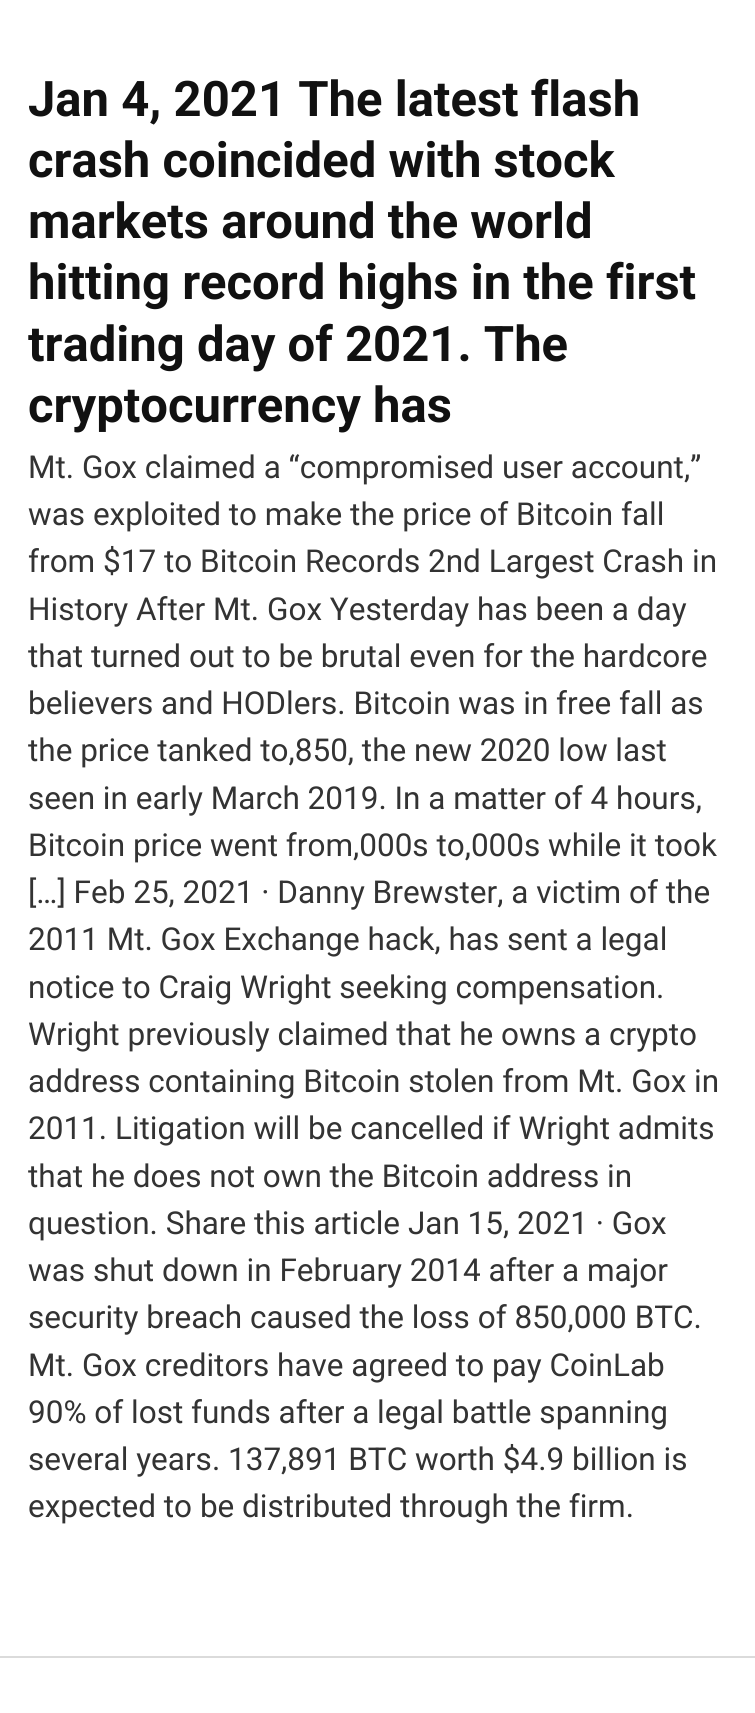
import math
import cairo

surface = cairo.ImageSurface(cairo.FORMAT_RGB24, 755, 1713)
ctx = cairo.Context(surface)
options = cairo.FontOptions()
options.set_hint_metrics(cairo.HINT_METRICS_OFF)
options.set_hint_style(cairo.HINT_STYLE_NONE)
ctx.set_font_options(options)
ctx.set_miter_limit(4)


def set_color(code):
    ctx.set_source_rgb(*(v / 255 for v in bytes.fromhex(code[-6:])))


def draw_text(x, y, s, family, size, color, bold=False, italic=False):
    ctx.select_font_face(family, cairo.FONT_SLANT_ITALIC if italic else cairo.FONT_SLANT_NORMAL, cairo.FONT_WEIGHT_BOLD if bold else cairo.FONT_WEIGHT_NORMAL)
    ctx.set_font_size(size)
    set_color(color)
    ctx.move_to(x, y)
    ctx.show_text(s)


def fill_rect(x, y, w, h, color):
    set_color(color)
    ctx.rectangle(x, y, w, h)
    ctx.fill()


set_color("#ffffff")
ctx.paint()
draw_text(28, 116, "Jan 4, 2021 The latest flash", "Roboto", 49, "#111111", bold=True)
draw_text(28, 177, "crash coincided with stock", "Roboto", 49, "#111111", bold=True)
draw_text(28, 238, "markets around the world", "Roboto", 49, "#111111", bold=True)
draw_text(28, 299, "hitting record highs in the first", "Roboto", 49, "#111111", bold=True)
draw_text(28, 361, "trading day of 2021. The", "Roboto", 49, "#111111", bold=True)
draw_text(28, 422, "cryptocurrency has", "Roboto", 49, "#111111", bold=True)
draw_text(28, 478, "Mt. Gox claimed a “compromised user account,”", "Roboto", 31.5, "#333333")
draw_text(28, 525, "was exploited to make the price of Bitcoin fall", "Roboto", 31.5, "#333333")
draw_text(28, 572, "from $17 to Bitcoin Records 2nd Largest Crash in", "Roboto", 31.5, "#333333")
draw_text(28, 620, "History After Mt. Gox Yesterday has been a day", "Roboto", 31.5, "#333333")
draw_text(28, 667, "that turned out to be brutal even for the hardcore", "Roboto", 31.5, "#333333")
draw_text(28, 714, "believers and HODlers. Bitcoin was in free fall as", "Roboto", 31.5, "#333333")
draw_text(28, 761, "the price tanked to,850, the new 2020 low last", "Roboto", 31.5, "#333333")
draw_text(28, 809, "seen in early March 2019. In a matter of 4 hours,", "Roboto", 31.5, "#333333")
draw_text(28, 856, "Bitcoin price went from,000s to,000s while it took", "Roboto", 31.5, "#333333")
draw_text(28, 903, "[…] Feb 25, 2021 · Danny Brewster, a victim of the", "Roboto", 31.5, "#333333")
draw_text(28, 950, "2011 Mt. Gox Exchange hack, has sent a legal", "Roboto", 31.5, "#333333")
draw_text(28, 998, "notice to Craig Wright seeking compensation.", "Roboto", 31.5, "#333333")
draw_text(28, 1045, "Wright previously claimed that he owns a crypto", "Roboto", 31.5, "#333333")
draw_text(28, 1092, "address containing Bitcoin stolen from Mt. Gox in", "Roboto", 31.5, "#333333")
draw_text(28, 1139, "2011. Litigation will be cancelled if Wright admits", "Roboto", 31.5, "#333333")
draw_text(28, 1187, "that he does not own the Bitcoin address in", "Roboto", 31.5, "#333333")
draw_text(28, 1234, "question. Share this article Jan 15, 2021 · Gox", "Roboto", 31.5, "#333333")
draw_text(28, 1281, "was shut down in February 2014 after a major", "Roboto", 31.5, "#333333")
draw_text(28, 1328, "security breach caused the loss of 850,000 BTC.", "Roboto", 31.5, "#333333")
draw_text(28, 1376, "Mt. Gox creditors have agreed to pay CoinLab", "Roboto", 31.5, "#333333")
draw_text(28, 1423, "90% of lost funds after a legal battle spanning", "Roboto", 31.5, "#333333")
draw_text(28, 1470, "several years. 137,891 BTC worth $4.9 billion is", "Roboto", 31.5, "#333333")
draw_text(28, 1517, "expected to be distributed through the firm.", "Roboto", 31.5, "#333333")
fill_rect(0, 1656, 755, 2, "#dbdbdb")
surface.write_to_png("output.png")
